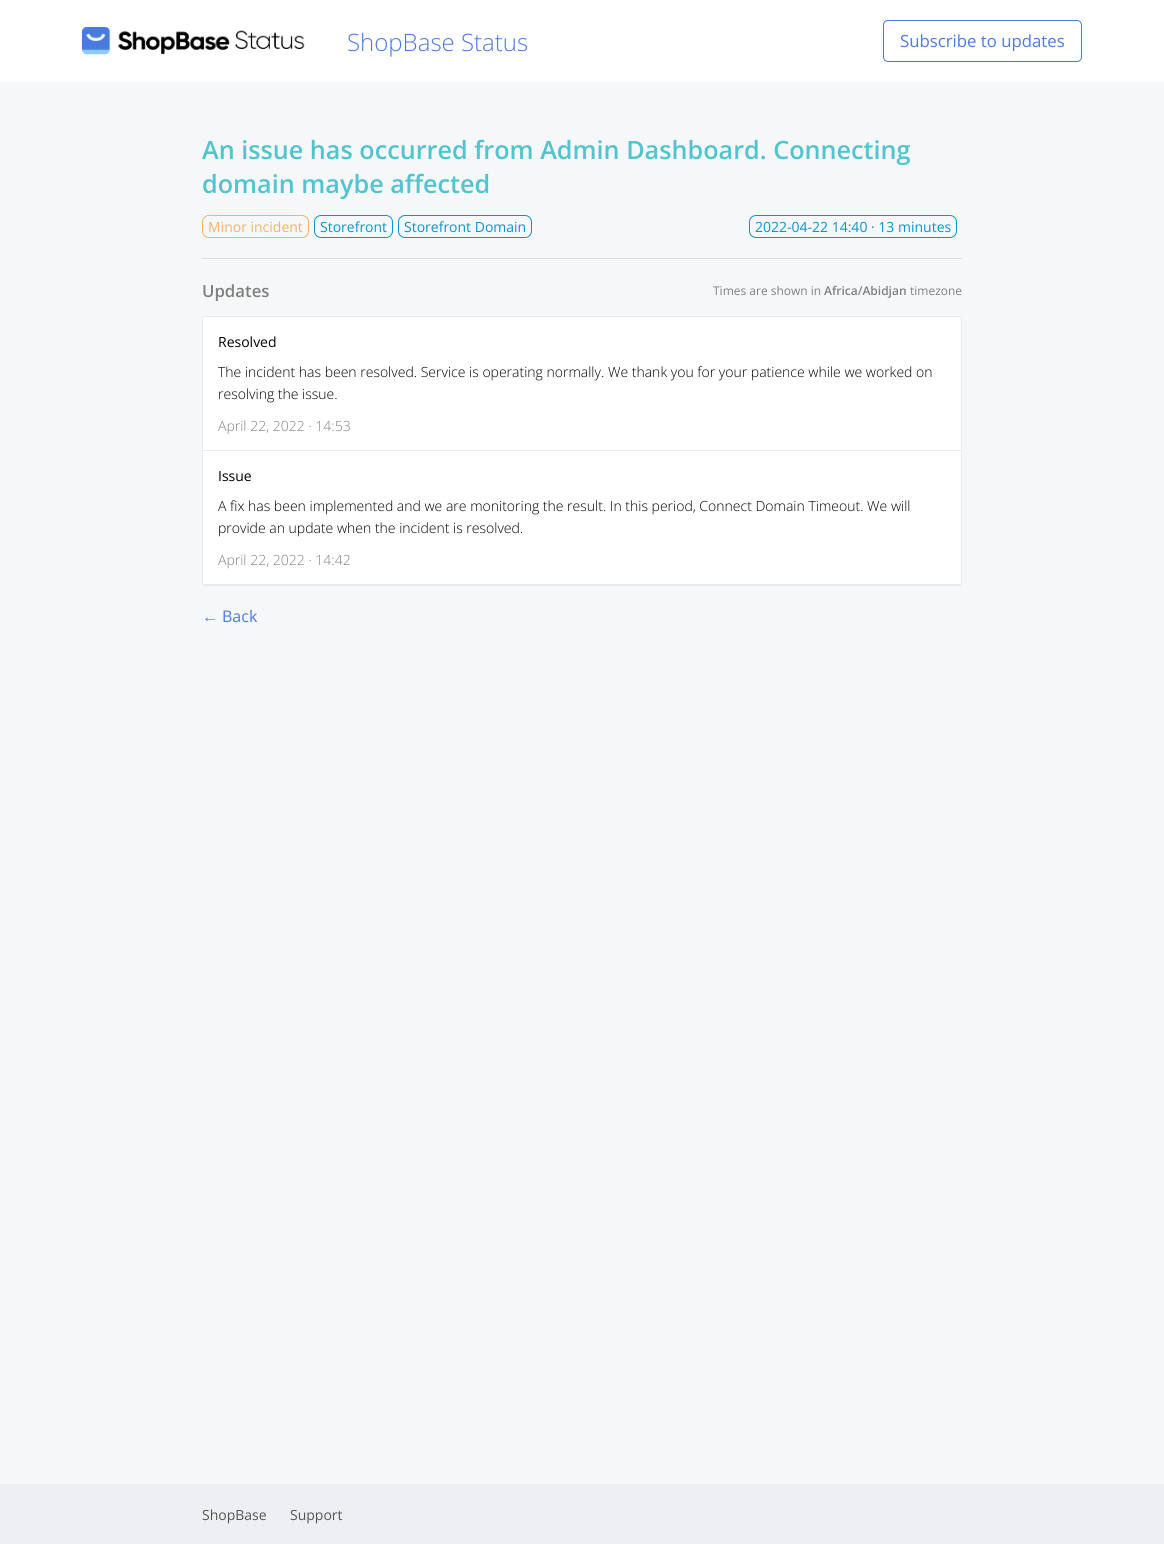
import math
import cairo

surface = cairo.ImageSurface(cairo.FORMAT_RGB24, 1164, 1544)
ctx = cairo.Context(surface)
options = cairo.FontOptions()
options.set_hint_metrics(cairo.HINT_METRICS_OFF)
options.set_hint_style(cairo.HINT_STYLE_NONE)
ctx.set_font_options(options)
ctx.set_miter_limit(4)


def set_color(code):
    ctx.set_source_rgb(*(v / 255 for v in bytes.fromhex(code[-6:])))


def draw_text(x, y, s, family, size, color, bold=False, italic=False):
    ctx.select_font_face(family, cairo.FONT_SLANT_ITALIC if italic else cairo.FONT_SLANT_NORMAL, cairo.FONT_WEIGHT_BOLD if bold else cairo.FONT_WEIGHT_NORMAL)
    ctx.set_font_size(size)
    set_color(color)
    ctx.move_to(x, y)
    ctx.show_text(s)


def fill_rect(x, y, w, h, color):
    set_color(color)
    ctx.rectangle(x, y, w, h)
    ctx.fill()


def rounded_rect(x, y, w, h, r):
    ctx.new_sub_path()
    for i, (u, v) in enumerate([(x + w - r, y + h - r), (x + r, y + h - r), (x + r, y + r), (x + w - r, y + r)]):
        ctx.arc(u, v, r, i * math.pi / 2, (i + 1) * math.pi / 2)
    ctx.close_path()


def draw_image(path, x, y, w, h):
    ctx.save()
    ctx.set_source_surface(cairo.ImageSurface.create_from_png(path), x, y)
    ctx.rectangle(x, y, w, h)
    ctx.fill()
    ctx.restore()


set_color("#f6f7f9")
ctx.paint()
fill_rect(0, 0, 1164, 82, "#ffffff")
draw_image("assets/img1.png", 82, 27, 223, 28)
draw_text(347, 51, "ShopBase Status", "Open Sans Light", 24, "#497bdf")
rounded_rect(883.5, 20.5, 198, 41, 4.5)
ctx.set_line_width(1)
ctx.stroke()
draw_text(900, 47, "Subscribe to updates", "Open Sans", 16.75, "#497bdf")
draw_text(202, 159, "An issue has occurred from Admin Dashboard. Connecting", "Open Sans SemiBold", 25.2, "#51c4ce")
draw_text(202, 193, "domain maybe affected", "Open Sans SemiBold", 25.2, "#51c4ce")
rounded_rect(202.5, 215.5, 106, 22, 6.5)
set_color("#eeb563")
ctx.stroke()
draw_text(208, 232, "Minor incident", "Open Sans", 14, "#eeb563")
rounded_rect(314.5, 215.5, 78, 22, 6.5)
set_color("#0d92ce")
ctx.stroke()
draw_text(320, 232, "Storefront", "Open Sans", 14, "#0d92ce")
rounded_rect(398.5, 215.5, 133, 22, 6.5)
ctx.stroke()
draw_text(404, 232, "Storefront Domain", "Open Sans", 14, "#0d92ce")
rounded_rect(749.5, 215.5, 207, 22, 6.5)
ctx.stroke()
draw_text(755, 232, "2022-04-22 14:40 · 13 minutes", "Open Sans", 14, "#0d92ce")
fill_rect(202, 258, 760, 1, "#dedede")
draw_text(202, 297, "Updates", "Open Sans SemiBold", 16.75, "#808080")
draw_text(713, 295, "Times are shown in", "Open Sans", 12, "#808080")
draw_text(824, 295, "Africa/Abidjan", "Open Sans SemiBold", 12, "#808080")
draw_text(910, 295, "timezone", "Open Sans", 12, "#808080")
set_color("#ffffff")
rounded_rect(202.5, 316.5, 759, 269, 2.5)
ctx.fill_preserve()
set_color("#eaeaea")
ctx.stroke()
fill_rect(203, 450, 758, 1, "#eaeaea")
draw_text(218, 347, "Resolved", "Open Sans", 14, "#000000")
draw_text(218, 377, "The incident has been resolved. Service is operating normally. We thank you for your patience while we worked on", "Open Sans Light", 14, "#000000")
draw_text(218, 399, "resolving the issue.", "Open Sans Light", 14, "#000000")
draw_text(218, 431, "April 22, 2022 · 14:53", "Open Sans Light", 14, "#808080")
fill_rect(203, 584, 758, 1, "#eaeaea")
draw_text(218, 481, "Issue", "Open Sans", 14, "#000000")
draw_text(218, 511, "A fix has been implemented and we are monitoring the result. In this period, Connect Domain Timeout. We will", "Open Sans Light", 14, "#000000")
draw_text(218, 533, "provide an update when the incident is resolved.", "Open Sans Light", 14, "#000000")
draw_text(218, 565, "April 22, 2022 · 14:42", "Open Sans Light", 14, "#808080")
draw_text(202, 622, "←", "Liberation Sans", 16, "#497bdf")
draw_text(222, 622, "Back", "Open Sans", 16, "#497bdf")
fill_rect(0, 1484, 1164, 60, "#edeff3")
draw_text(202, 1520, "ShopBase", "Open Sans", 14, "#555555")
draw_text(290, 1520, "Support", "Open Sans", 14, "#555555")
surface.write_to_png("output.png")
